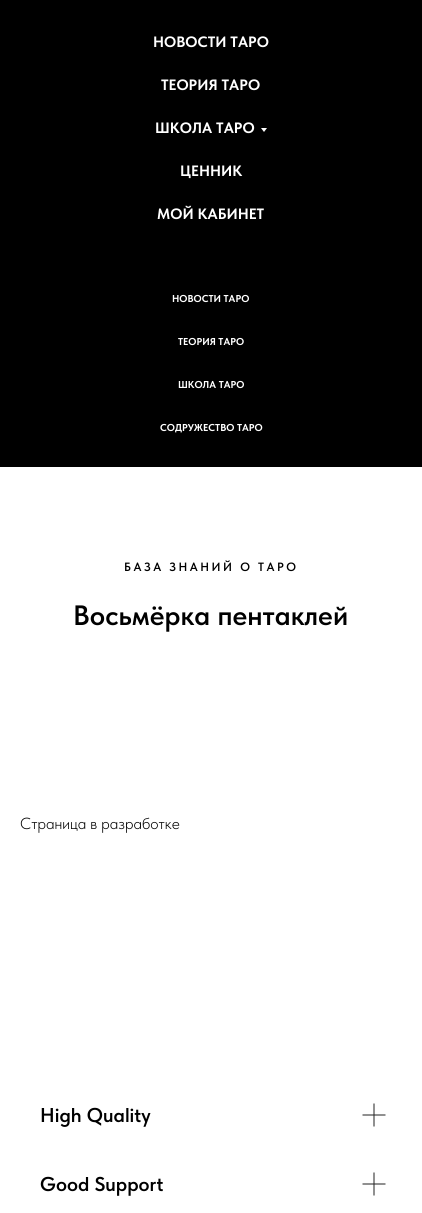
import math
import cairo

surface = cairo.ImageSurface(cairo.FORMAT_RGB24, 422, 1213)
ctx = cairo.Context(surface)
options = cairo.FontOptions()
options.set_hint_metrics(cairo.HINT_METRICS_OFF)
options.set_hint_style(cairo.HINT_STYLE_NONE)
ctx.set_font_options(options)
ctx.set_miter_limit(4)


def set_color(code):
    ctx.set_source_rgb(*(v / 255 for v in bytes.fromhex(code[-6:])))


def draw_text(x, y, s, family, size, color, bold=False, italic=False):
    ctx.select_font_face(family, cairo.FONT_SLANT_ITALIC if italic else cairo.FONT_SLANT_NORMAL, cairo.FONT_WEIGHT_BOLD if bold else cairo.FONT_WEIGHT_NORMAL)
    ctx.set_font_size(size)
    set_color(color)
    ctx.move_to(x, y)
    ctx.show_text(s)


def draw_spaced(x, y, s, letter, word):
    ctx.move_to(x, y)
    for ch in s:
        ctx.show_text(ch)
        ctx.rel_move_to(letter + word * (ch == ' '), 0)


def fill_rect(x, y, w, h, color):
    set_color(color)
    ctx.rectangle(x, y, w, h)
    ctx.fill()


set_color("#ffffff")
ctx.paint()
fill_rect(0, 0, 422, 467, "#000000")
draw_text(153, 47, "НОВОСТИ ТАРО", "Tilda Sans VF", 15, "#ffffff", bold=True)
draw_text(161, 90, "ТЕОРИЯ ТАРО", "Tilda Sans VF", 15, "#ffffff", bold=True)
draw_text(155, 133, "ШКОЛА ТАРО", "Tilda Sans VF", 15, "#ffffff", bold=True)
ctx.new_path()
ctx.move_to(261, 128)
ctx.line_to(267, 128)
ctx.line_to(264, 132)
ctx.close_path()
ctx.fill()
draw_text(180, 176, "ЦЕННИК", "Tilda Sans VF", 15, "#ffffff", bold=True)
draw_text(157, 219, "МОЙ КАБИНЕТ", "Tilda Sans VF", 15, "#ffffff", bold=True)
draw_text(172, 302, "НОВОСТИ ТАРО", "Tilda Sans VF", 10, "#ffffff", bold=True)
draw_text(178, 345, "ТЕОРИЯ ТАРО", "Tilda Sans VF", 10, "#ffffff", bold=True)
draw_text(178, 388, "ШКОЛА ТАРО", "Tilda Sans VF", 10, "#ffffff", bold=True)
draw_text(160, 431, "СОДРУЖЕСТВО ТАРО", "Tilda Sans VF", 10, "#ffffff", bold=True)
ctx.select_font_face("Tilda Sans VF SemiBold")
ctx.set_font_size(12)
set_color("#000000")
draw_spaced(124, 571, "БАЗА ЗНАНИЙ О ТАРО", 2.5, 0)
draw_text(73, 625, "Восьмёрка пентаклей", "Tilda Sans VF SemiBold", 28, "#000000")
draw_text(20, 829, "Страница в разработке", "Tilda Sans VF Light", 16, "#000000")
draw_text(40, 1122, "High Quality", "Tilda Sans VF SemiBold", 20, "#000000")
ctx.new_path()
ctx.move_to(363, 1115)
ctx.line_to(385, 1115)
ctx.move_to(374, 1104)
ctx.line_to(374, 1126)
set_color("#222222")
ctx.set_line_width(1)
ctx.set_line_cap(cairo.LINE_CAP_SQUARE)
ctx.stroke()
draw_text(40, 1191, "Good Support", "Tilda Sans VF SemiBold", 20, "#000000")
ctx.new_path()
ctx.move_to(363, 1184)
ctx.line_to(385, 1184)
ctx.move_to(374, 1173)
ctx.line_to(374, 1195)
set_color("#222222")
ctx.stroke()
surface.write_to_png("output.png")
